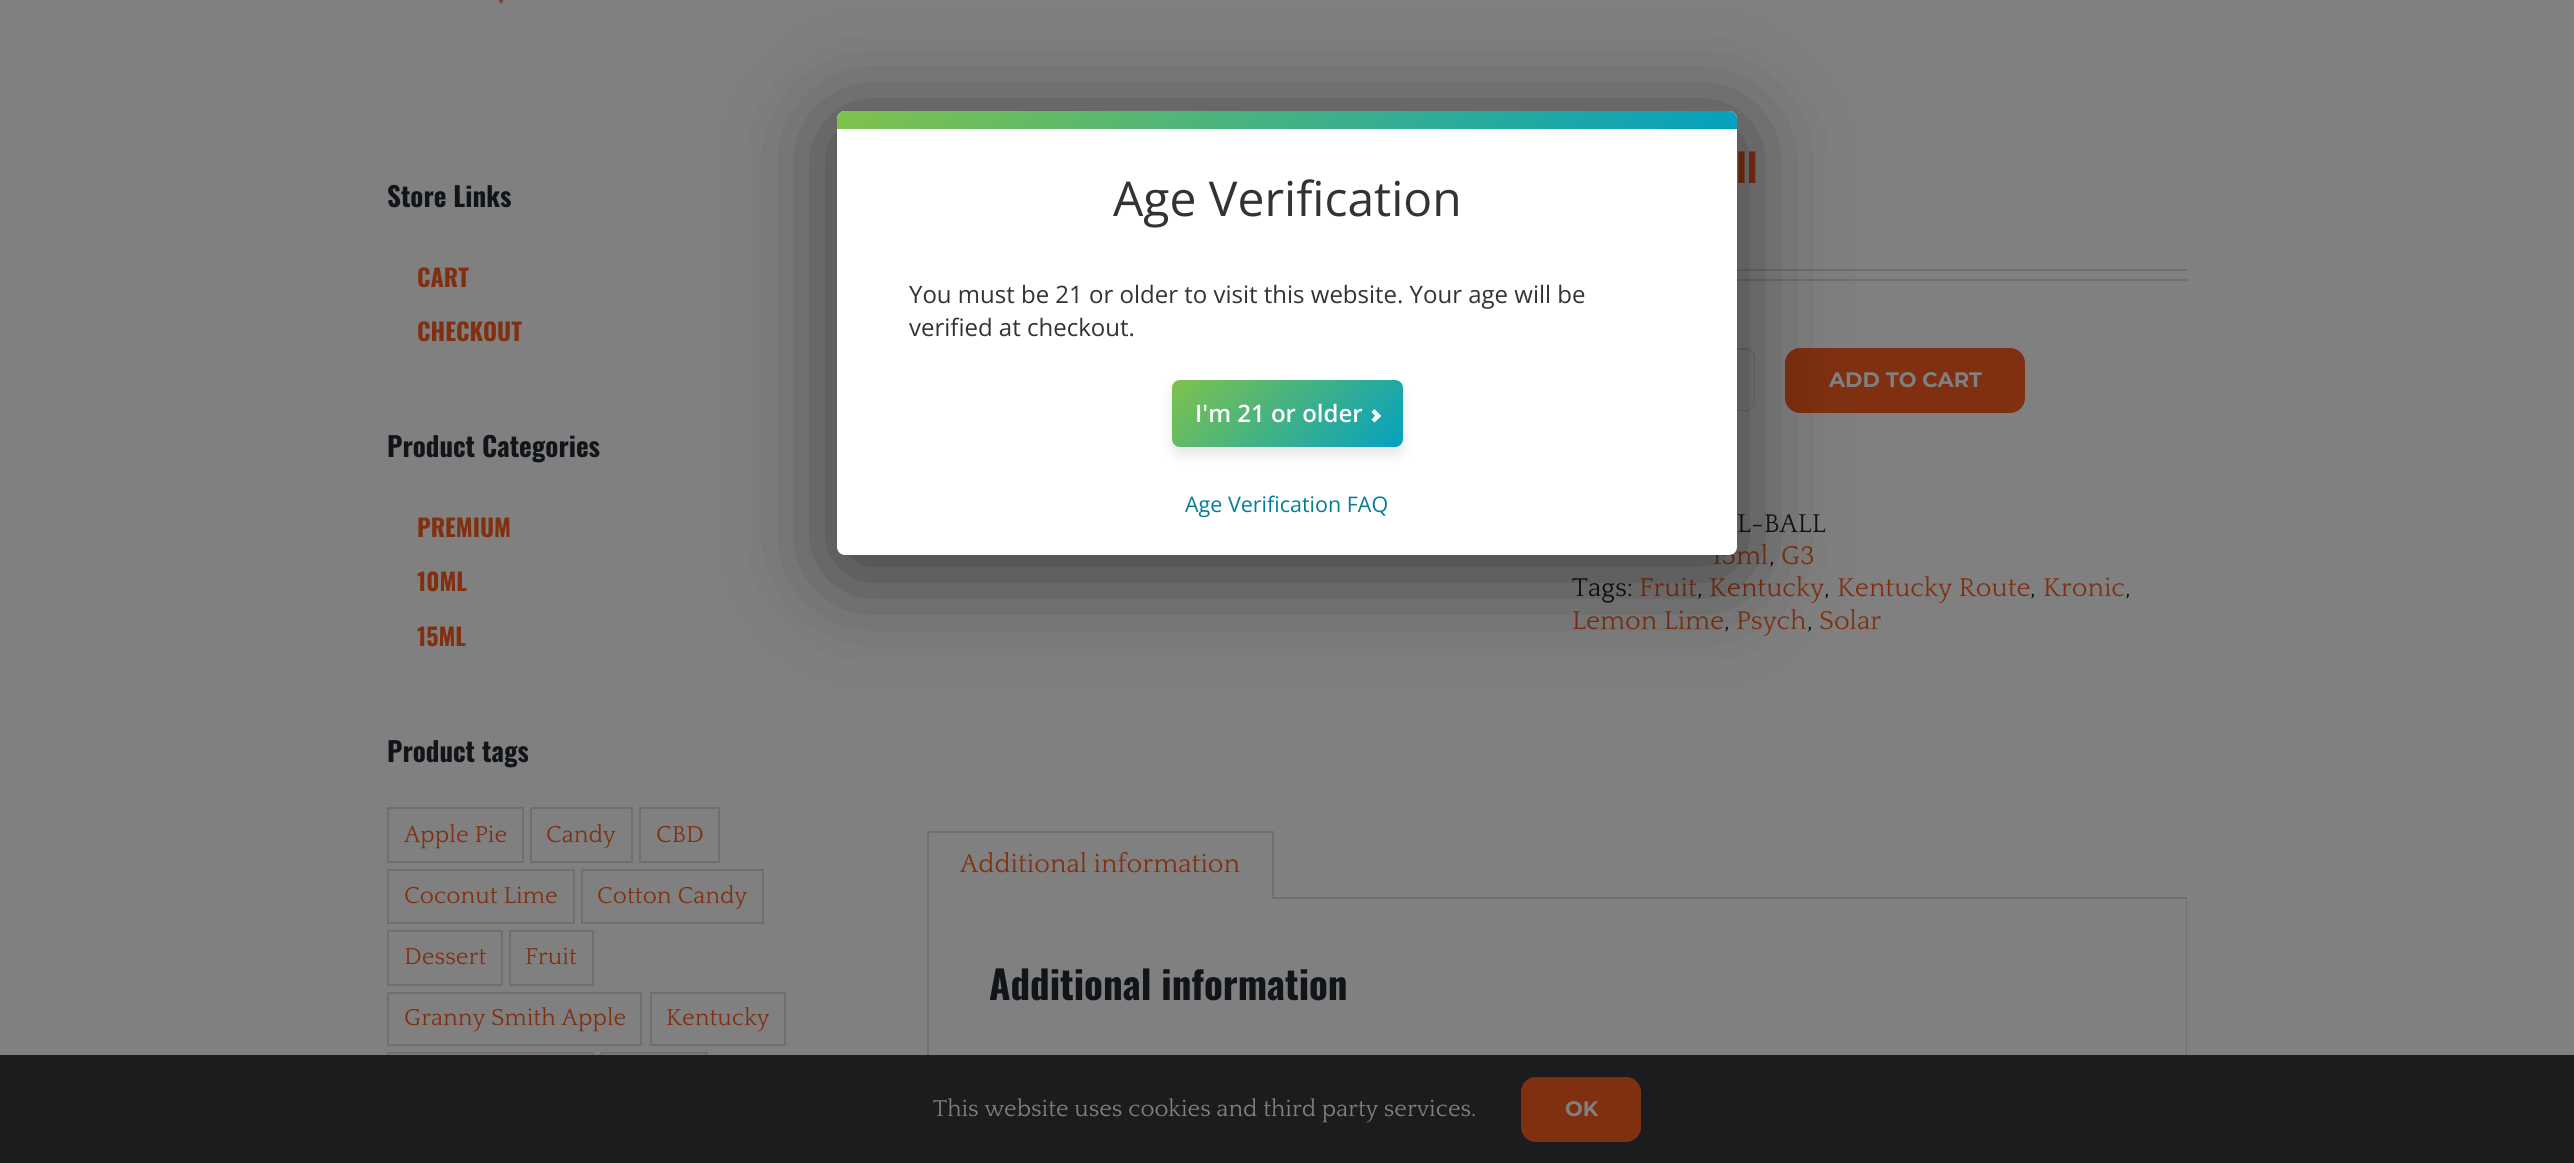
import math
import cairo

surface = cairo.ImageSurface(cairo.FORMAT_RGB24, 2574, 1163)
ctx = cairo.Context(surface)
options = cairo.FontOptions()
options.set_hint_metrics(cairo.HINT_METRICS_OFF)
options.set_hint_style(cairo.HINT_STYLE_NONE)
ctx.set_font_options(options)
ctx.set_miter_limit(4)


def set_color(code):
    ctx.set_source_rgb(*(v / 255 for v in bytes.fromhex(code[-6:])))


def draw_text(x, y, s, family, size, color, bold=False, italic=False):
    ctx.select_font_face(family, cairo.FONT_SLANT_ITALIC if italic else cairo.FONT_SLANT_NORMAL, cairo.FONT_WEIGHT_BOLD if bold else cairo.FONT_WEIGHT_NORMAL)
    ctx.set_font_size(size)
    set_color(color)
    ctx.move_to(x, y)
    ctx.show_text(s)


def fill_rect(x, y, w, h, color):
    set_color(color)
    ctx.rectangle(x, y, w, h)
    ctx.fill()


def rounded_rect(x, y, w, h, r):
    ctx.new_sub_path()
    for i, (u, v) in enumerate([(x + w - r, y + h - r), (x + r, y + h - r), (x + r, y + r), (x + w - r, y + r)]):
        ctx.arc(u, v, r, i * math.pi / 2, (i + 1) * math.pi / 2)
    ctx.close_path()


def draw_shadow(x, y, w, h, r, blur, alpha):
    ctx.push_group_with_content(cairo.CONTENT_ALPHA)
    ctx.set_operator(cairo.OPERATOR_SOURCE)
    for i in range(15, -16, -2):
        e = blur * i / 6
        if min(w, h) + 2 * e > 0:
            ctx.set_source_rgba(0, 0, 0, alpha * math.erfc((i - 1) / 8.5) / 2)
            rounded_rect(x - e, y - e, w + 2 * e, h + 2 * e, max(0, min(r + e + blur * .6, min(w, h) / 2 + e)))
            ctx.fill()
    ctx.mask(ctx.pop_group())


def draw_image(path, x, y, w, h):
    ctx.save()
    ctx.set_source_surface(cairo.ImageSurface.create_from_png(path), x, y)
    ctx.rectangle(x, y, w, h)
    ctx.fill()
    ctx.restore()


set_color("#808080")
ctx.paint()
draw_image("assets/img1.png", 497, 0, 8, 4)
draw_text(387, 207, "Store Links", "Oswald", 27, "#11151a", bold=True)
draw_text(417, 287, "CART", "Oswald", 24, "#803011", bold=True)
draw_text(417, 341, "CHECKOUT", "Oswald", 24, "#803011", bold=True)
draw_text(387, 457, "Product Categories", "Oswald", 27, "#11151a", bold=True)
draw_text(417, 537, "PREMIUM", "Oswald", 24, "#803011", bold=True)
draw_text(417, 591, "10ML", "Oswald", 24, "#803011", bold=True)
draw_text(417, 646, "15ML", "Oswald", 24, "#803011", bold=True)
draw_text(387, 762, "Product tags", "Oswald", 27, "#11151a", bold=True)
ctx.rectangle(388, 808, 135, 54)
set_color("#706f6f")
ctx.stroke()
draw_text(404, 842, "Apple Pie", "Quattrocento", 24.25, "#803011")
ctx.rectangle(531, 808, 101, 54)
set_color("#706f6f")
ctx.stroke()
draw_text(546, 842, "Candy", "Quattrocento", 24.25, "#803011")
ctx.rectangle(640, 808, 79, 54)
set_color("#706f6f")
ctx.stroke()
draw_text(656, 842, "CBD", "Quattrocento", 24.25, "#803011")
ctx.rectangle(388, 870, 186, 53)
set_color("#706f6f")
ctx.stroke()
draw_text(404, 903, "Coconut Lime", "Quattrocento", 24.25, "#803011")
ctx.rectangle(582, 870, 181, 53)
set_color("#706f6f")
ctx.stroke()
draw_text(597, 903, "Cotton Candy", "Quattrocento", 24.25, "#803011")
ctx.rectangle(388, 931, 114, 54)
set_color("#706f6f")
ctx.stroke()
draw_text(404, 964, "Dessert", "Quattrocento", 24.25, "#803011")
ctx.rectangle(510, 931, 83, 54)
set_color("#706f6f")
ctx.stroke()
draw_text(525, 964, "Fruit", "Quattrocento", 24.25, "#803011")
ctx.rectangle(388, 993, 253, 52)
set_color("#706f6f")
ctx.stroke()
draw_text(404, 1025, "Granny Smith Apple", "Quattrocento", 24.25, "#803011")
ctx.rectangle(651, 993, 134, 52)
set_color("#706f6f")
ctx.stroke()
draw_text(666, 1025, "Kentucky", "Quattrocento", 24.25, "#803011")
ctx.rectangle(388, 1053, 205, 53)
set_color("#706f6f")
ctx.stroke()
ctx.rectangle(601, 1053, 106, 53)
ctx.stroke()
draw_text(1736, 183, "ll", "Oswald", 39, "#803011", bold=True)
fill_rect(1737, 269, 450, 2, "#706f6f")
fill_rect(1737, 279, 450, 2, "#706f6f")
rounded_rect(1573, 349, 181, 61, 8)
ctx.stroke()
set_color("#7e7d7d")
ctx.new_path()
ctx.move_to(1694, 350)
ctx.line_to(1746, 350)
ctx.curve_to(1750.5, 350, 1754, 353.5, 1754, 358)
ctx.line_to(1754, 402)
ctx.curve_to(1754, 406.5, 1750.5, 410, 1746, 410)
ctx.line_to(1694, 410)
ctx.close_path()
ctx.fill()
set_color("#803011")
rounded_rect(1785, 348, 240, 65, 15)
ctx.fill()
draw_text(1829, 387, "ADD TO CART", "Montserrat Thin", 21, "#808080")
draw_text(1737, 532, "L-BALL", "Quattrocento", 27, "#131313")
draw_text(1712, 564, "15ml", "Quattrocento", 27, "#803011")
draw_text(1769, 564, ",", "Quattrocento", 27, "#131313")
draw_text(1781, 564, "G3", "Quattrocento", 27, "#803011")
draw_text(1572, 596, "Tags:", "Quattrocento", 27, "#131313")
draw_text(1639, 596, "Fruit", "Quattrocento", 27, "#803011")
draw_text(1697, 596, ",", "Quattrocento", 27, "#131313")
draw_text(1709, 596, "Kentucky", "Quattrocento", 27, "#803011")
draw_text(1824, 596, ",", "Quattrocento", 27, "#131313")
draw_text(1837, 596, "Kentucky Route", "Quattrocento", 27, "#803011")
draw_text(2030, 596, ",", "Quattrocento", 27, "#131313")
draw_text(2043, 596, "Kronic", "Quattrocento", 27, "#803011")
draw_text(2125, 596, ",", "Quattrocento", 27, "#131313")
draw_text(1572, 629, "Lemon Lime", "Quattrocento", 27, "#803011")
draw_text(1724, 629, ",", "Quattrocento", 27, "#131313")
draw_text(1736, 629, "Psych", "Quattrocento", 27, "#803011")
draw_text(1807, 629, ",", "Quattrocento", 27, "#131313")
draw_text(1819, 629, "Solar", "Quattrocento", 27, "#803011")
fill_rect(1274, 897, 913, 2, "#706f6f")
fill_rect(927, 831, 347, 2, "#6f6f6f")
fill_rect(1272, 831, 2, 68, "#6f6f6f")
fill_rect(927, 831, 2, 68, "#6f6f6f")
draw_text(960, 872, "Additional information", "Quattrocento", 27, "#803011")
fill_rect(2186, 899, 1, 156, "#706f6f")
fill_rect(927, 899, 2, 156, "#706f6f")
draw_text(989, 1000, "Additional information", "Oswald", 39, "#11151a", bold=True)
set_color("#000000")
draw_shadow(833, 122, 909, 453, 12, 48, 0.5)
set_color("#ffffff")
rounded_rect(837, 111, 900, 444, 8)
ctx.fill()
gradient = cairo.LinearGradient(1058, -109, 1517, 350)
gradient.add_color_stop_rgba(0, 0.498, 0.761, 0.298, 1)
gradient.add_color_stop_rgba(1, 0.016, 0.631, 0.749, 1)
ctx.set_source(gradient)
ctx.new_path()
ctx.move_to(845, 111)
ctx.line_to(1729, 111)
ctx.curve_to(1733.5, 111, 1737, 114.5, 1737, 119)
ctx.line_to(1737, 129)
ctx.line_to(837, 129)
ctx.line_to(837, 119)
ctx.curve_to(837, 114.5, 840.5, 111, 845, 111)
ctx.close_path()
ctx.fill()
draw_text(1113, 216, "Age Verification", "Open Sans", 48, "#333333")
draw_text(909, 303, "You must be 21 or older to visit this website. Your age will be", "Open Sans", 24, "#333333")
draw_text(909, 336, "verified at checkout.", "Open Sans", 24, "#333333")
set_color("#000000")
draw_shadow(1172, 387, 231, 68, 8, 6, 0.1)
gradient = cairo.LinearGradient(1212, 339, 1362, 488)
gradient.add_color_stop_rgba(0, 0.498, 0.761, 0.298, 1)
gradient.add_color_stop_rgba(1, 0.016, 0.631, 0.749, 1)
ctx.set_source(gradient)
rounded_rect(1172, 380, 231, 67, 8)
ctx.fill()
draw_text(1195, 422, "I'm 21 or older", "Open Sans SemiBold", 24, "#ffffff")
ctx.new_path()
ctx.move_to(1371.5, 412)
ctx.line_to(1374.5, 409)
ctx.line_to(1381, 416)
ctx.line_to(1378, 419)
ctx.close_path()
ctx.fill()
ctx.new_path()
ctx.move_to(1371.5, 419.5)
ctx.line_to(1378, 412.5)
ctx.line_to(1381, 416)
ctx.line_to(1374.5, 422.5)
ctx.close_path()
ctx.fill()
draw_text(1185, 512, "Age Verification FAQ", "Open Sans", 21.5, "#037d96")
fill_rect(0, 1055, 2574, 108, "#1b1c1d")
draw_text(933, 1116, "This website uses cookies and third party services.", "Quattrocento", 24, "#808080")
set_color("#803011")
rounded_rect(1521, 1077, 120, 65, 15)
ctx.fill()
draw_text(1565, 1116, "OK", "Montserrat Thin", 21, "#808080")
surface.write_to_png("output.png")
